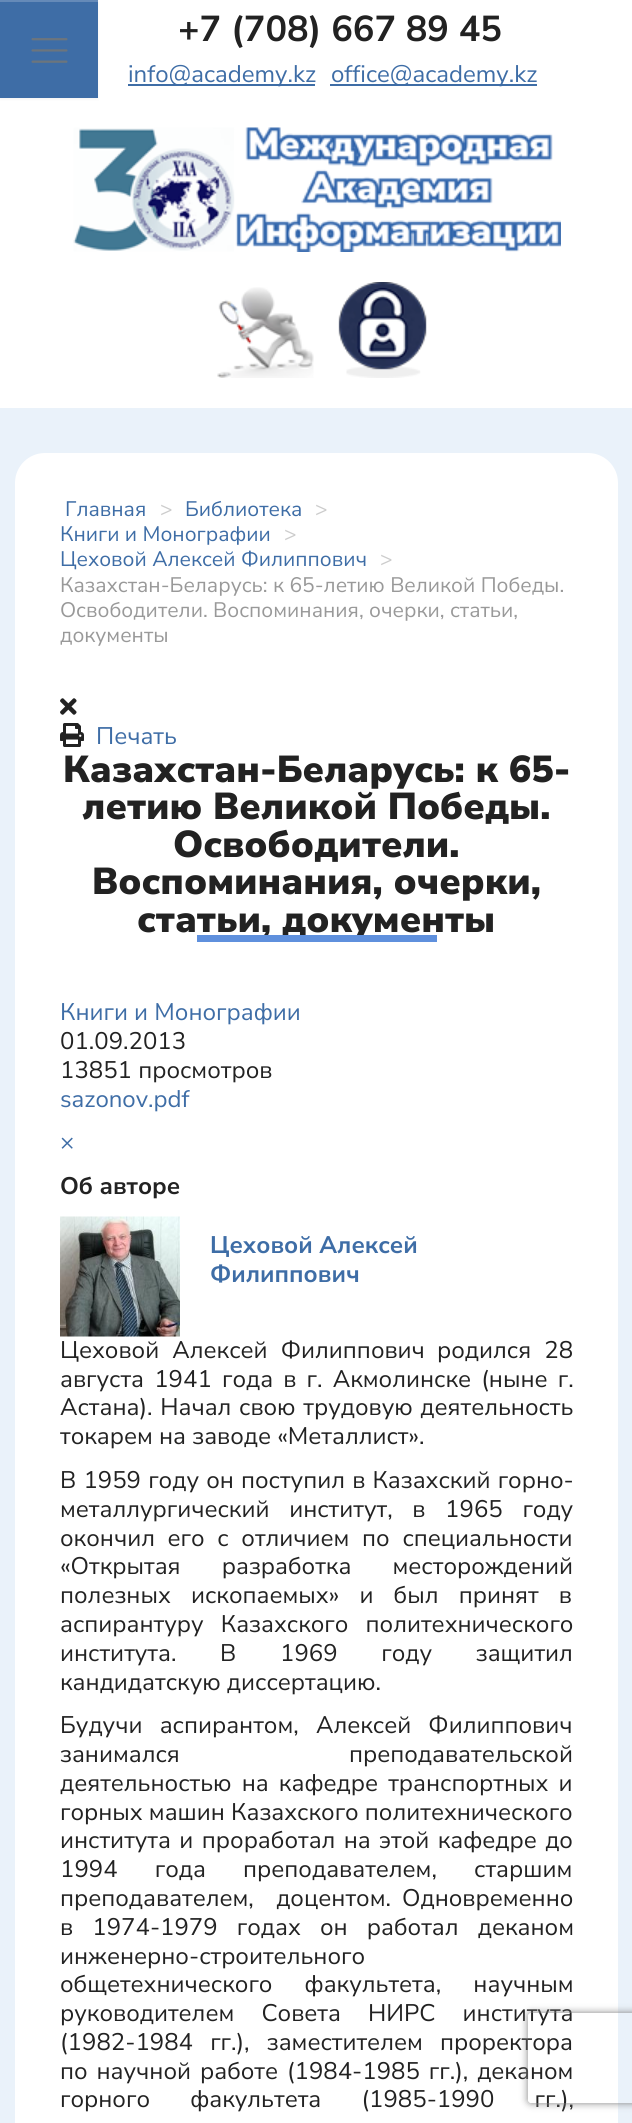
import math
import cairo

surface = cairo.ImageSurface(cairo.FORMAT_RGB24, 632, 2123)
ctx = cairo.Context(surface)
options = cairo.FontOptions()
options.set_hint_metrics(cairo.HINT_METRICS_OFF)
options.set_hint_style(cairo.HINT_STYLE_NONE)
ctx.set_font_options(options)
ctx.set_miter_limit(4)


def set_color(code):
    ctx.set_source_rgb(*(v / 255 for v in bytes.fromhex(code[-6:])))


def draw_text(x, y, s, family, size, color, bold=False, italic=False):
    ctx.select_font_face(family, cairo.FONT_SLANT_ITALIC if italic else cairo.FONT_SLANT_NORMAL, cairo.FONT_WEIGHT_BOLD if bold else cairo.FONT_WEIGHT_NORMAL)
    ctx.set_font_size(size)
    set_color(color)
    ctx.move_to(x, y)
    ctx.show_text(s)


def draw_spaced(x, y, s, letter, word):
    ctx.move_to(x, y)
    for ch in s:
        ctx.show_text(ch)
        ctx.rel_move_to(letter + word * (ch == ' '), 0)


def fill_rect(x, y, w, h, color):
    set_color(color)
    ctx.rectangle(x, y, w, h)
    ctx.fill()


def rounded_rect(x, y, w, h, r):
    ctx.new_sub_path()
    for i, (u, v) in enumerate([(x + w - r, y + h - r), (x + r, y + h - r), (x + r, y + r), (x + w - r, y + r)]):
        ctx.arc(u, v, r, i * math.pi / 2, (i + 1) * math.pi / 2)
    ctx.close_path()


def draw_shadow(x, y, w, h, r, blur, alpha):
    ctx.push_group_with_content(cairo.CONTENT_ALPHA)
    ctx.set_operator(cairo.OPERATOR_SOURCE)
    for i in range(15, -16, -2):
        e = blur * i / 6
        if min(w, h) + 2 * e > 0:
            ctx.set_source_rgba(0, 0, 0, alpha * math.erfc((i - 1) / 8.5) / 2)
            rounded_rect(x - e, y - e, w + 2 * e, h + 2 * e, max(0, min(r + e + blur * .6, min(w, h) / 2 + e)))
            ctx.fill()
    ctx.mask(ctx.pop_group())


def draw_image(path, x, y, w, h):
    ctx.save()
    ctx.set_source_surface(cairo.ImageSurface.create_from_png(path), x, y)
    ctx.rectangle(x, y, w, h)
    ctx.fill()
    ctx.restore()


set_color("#ffffff")
ctx.paint()
set_color("#000000")
draw_shadow(0, 2, 98, 97, 0, 1.5, 0.05)
fill_rect(0, 2, 98, 96, "#3e6da6")
fill_rect(0, 0, 98, 2, "#658ab8")
draw_image("assets/img1.png", 31, 38, 37, 25)
draw_text(178, 41, "+7 (708) 667 89 45", "Nunito Sans", 36, "#222222", bold=True)
fill_rect(128, 84, 187, 2, "#3e6da6")
draw_text(128, 82, "info@academy.kz", "Nunito Sans", 24, "#3e6da6")
fill_rect(330, 84, 207, 2, "#3e6da6")
draw_text(331, 82, "office@academy.kz", "Nunito Sans", 24, "#3e6da6")
draw_image("assets/img2.png", 73, 127, 488, 125)
draw_image("assets/img3.png", 217, 287, 97, 91)
draw_image("assets/img4.png", 338, 282, 89, 96)
fill_rect(0, 408, 632, 1715, "#eaf2fa")
set_color("#ffffff")
rounded_rect(15, 453, 603, 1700, 30)
ctx.fill()
draw_text(65, 516, "Главная", "Nunito Sans", 21, "#3e6da6")
draw_text(160, 516, ">", "Nunito Sans", 21, "#cccccc")
draw_text(185, 516, "Библиотека", "Nunito Sans", 21, "#3e6da6")
draw_text(315, 516, ">", "Nunito Sans", 21, "#cccccc")
draw_text(60, 541, "Книги и Монографии", "Nunito Sans", 21, "#3e6da6")
draw_text(284, 541, ">", "Nunito Sans", 21, "#cccccc")
draw_text(60, 566, "Цеховой Алексей Филиппович", "Nunito Sans", 21, "#3e6da6")
draw_text(380, 566, ">", "Nunito Sans", 21, "#cccccc")
draw_text(60, 592, "Казахстан-Беларусь: к 65-летию Великой Победы.", "Nunito Sans", 21, "#999999")
draw_text(60, 617, "Освободители. Воспоминания, очерки, статьи,", "Nunito Sans", 21, "#999999")
draw_text(60, 642, "документы", "Nunito Sans", 21, "#999999")
draw_image("assets/img5.png", 60, 698, 17, 17)
draw_image("assets/img6.png", 60, 723, 24, 24)
draw_text(96, 744, "Печать", "Nunito Sans", 24, "#3e6da6")
draw_text(63, 782, "Казахстан-Беларусь: к 65-", "Nunito Sans Black", 37.5, "#222222")
draw_text(82, 819, "летию Великой Победы.", "Nunito Sans Black", 37.5, "#222222")
draw_text(173, 857, "Освободители.", "Nunito Sans Black", 37.5, "#222222")
draw_text(92, 894, "Воспоминания, очерки,", "Nunito Sans Black", 37.5, "#222222")
draw_text(137, 932, "статьи, документы", "Nunito Sans Black", 37.5, "#222222")
fill_rect(197, 935, 240, 7, "#5f90dd")
draw_text(60, 1020, "Книги и Монографии", "Nunito Sans", 24, "#3e6da6")
draw_text(60, 1049, "01.09.2013", "Nunito Sans", 24, "#222222")
draw_text(60, 1078, "13851 просмотров", "Nunito Sans", 24, "#222222")
draw_text(60, 1107, "sazonov.pdf", "Nunito Sans", 24, "#3e6da6")
draw_text(60, 1150, "×", "Nunito Sans", 24, "#3e6da6")
draw_text(60, 1194, "Об авторе", "Nunito Sans", 24, "#222222", bold=True)
draw_image("assets/img7.png", 60, 1216, 120, 121)
draw_text(210, 1253, "Цеховой Алексей", "Nunito Sans", 24, "#3e6da6", bold=True)
draw_text(210, 1282, "Филиппович", "Nunito Sans", 24, "#3e6da6", bold=True)
ctx.select_font_face("Nunito Sans")
set_color("#222222")
draw_spaced(60, 1358, "Цеховой Алексей Филиппович", 0, 7)
draw_spaced(437, 1358, "родился 28", 0, 7)
draw_spaced(60, 1387, "августа 1941 года в г. Акмолинске (ныне г.", 0, 4)
draw_spaced(60, 1415, "Астана). Начал свою трудовую деятельность", 0, 1.5)
draw_text(60, 1444, "токарем на заводе «Металлист».", "Nunito Sans", 24, "#222222")
draw_spaced(60, 1488, "В 1959 году он поступил в Казахский горно-", 0, 1)
draw_spaced(60, 1517, "металлургический институт, в 1965 году", 0, 13.5)
draw_spaced(60, 1546, "окончил его с отличием по специальности", 0, 6.5)
draw_spaced(60, 1574, "«Открытая разработка месторождений", 0, 35)
draw_spaced(60, 1603, "полезных ископаемых» и был принят в", 0, 14)
draw_spaced(60, 1632, "аспирантуру Казахского политехнического", 0, 11)
draw_spaced(60, 1661, "института. В 1969 году защитил", 0, 37.5)
draw_text(60, 1690, "кандидатскую диссертацию.", "Nunito Sans", 24, "#222222")
draw_spaced(60, 1733, "Будучи аспирантом, Алексей Филиппович", 0, 11)
draw_spaced(60, 1762, "занимался преподавательской", 0, 163)
draw_spaced(60, 1791, "деятельностью на кафедре транспортных и", 0, 4)
draw_text(60, 1820, "горных машин Казахского политехнического", "Nunito Sans", 24, "#222222")
draw_spaced(60, 1848, "института и проработал на этой кафедре до", 0, 2.25)
draw_spaced(60, 1877, "1994 года преподавателем, старшим", 0, 31)
draw_spaced(60, 1906, "преподавателем,  доцентом. Одновременно", 0, 5)
draw_spaced(60, 1935, "в 1974-1979 годах он работал деканом", 0, 13)
draw_text(60, 1964, "инженерно-строительного", "Nunito Sans", 24, "#222222")
draw_spaced(60, 1992, "общетехнического факультета, научным", 0, 26)
draw_spaced(60, 2021, "руководителем Совета НИРС института", 0, 21)
draw_spaced(60, 2050, "(1982-1984 гг.), заместителем проректора", 0, 11)
draw_spaced(60, 2079, "по научной работе (1984-1985 гг.), деканом", 0, 2.75)
draw_spaced(60, 2107, "горного факультета (1985-1990 гг.),", 0, 34)
ctx.save()
ctx.set_fill_rule(cairo.FILL_RULE_EVEN_ODD)
ctx.new_path()
ctx.move_to(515, 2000)
ctx.line_to(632, 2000)
ctx.line_to(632, 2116)
ctx.line_to(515, 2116)
ctx.close_path()
ctx.move_to(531, 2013)
ctx.line_to(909, 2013)
ctx.curve_to(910.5, 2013, 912, 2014.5, 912, 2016)
ctx.line_to(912, 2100)
ctx.curve_to(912, 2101.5, 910.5, 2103, 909, 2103)
ctx.line_to(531, 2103)
ctx.curve_to(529.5, 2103, 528, 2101.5, 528, 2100)
ctx.line_to(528, 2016)
ctx.curve_to(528, 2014.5, 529.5, 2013, 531, 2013)
ctx.close_path()
ctx.clip()
set_color("#808080")
draw_shadow(528, 2013, 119, 90, 3, 4, 1)
ctx.restore()
surface.write_to_png("output.png")
